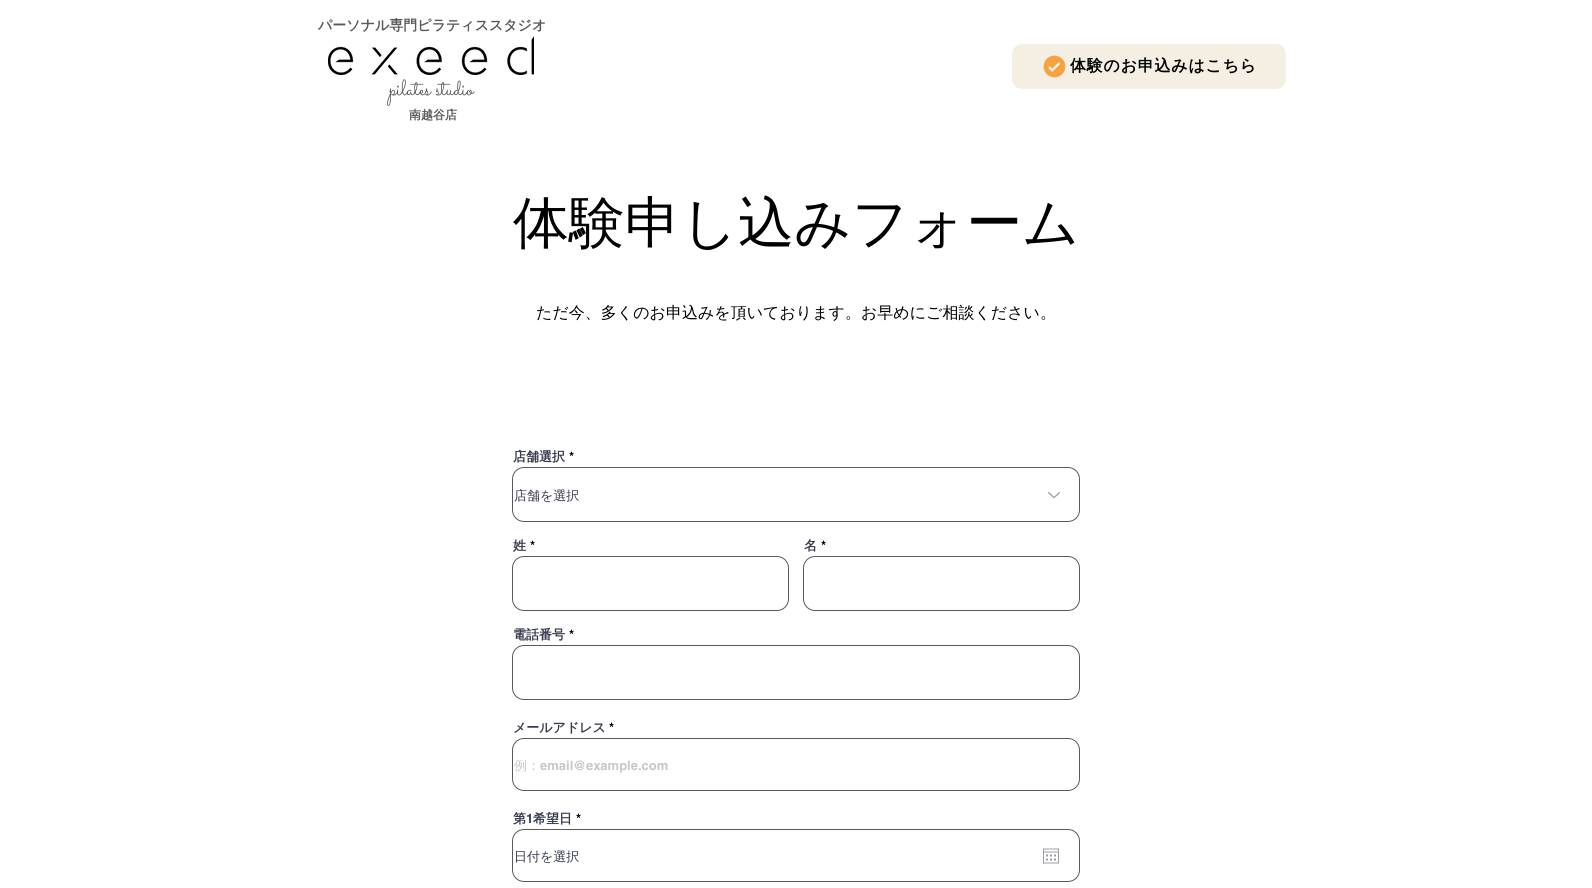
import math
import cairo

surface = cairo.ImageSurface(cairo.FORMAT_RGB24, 1592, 888)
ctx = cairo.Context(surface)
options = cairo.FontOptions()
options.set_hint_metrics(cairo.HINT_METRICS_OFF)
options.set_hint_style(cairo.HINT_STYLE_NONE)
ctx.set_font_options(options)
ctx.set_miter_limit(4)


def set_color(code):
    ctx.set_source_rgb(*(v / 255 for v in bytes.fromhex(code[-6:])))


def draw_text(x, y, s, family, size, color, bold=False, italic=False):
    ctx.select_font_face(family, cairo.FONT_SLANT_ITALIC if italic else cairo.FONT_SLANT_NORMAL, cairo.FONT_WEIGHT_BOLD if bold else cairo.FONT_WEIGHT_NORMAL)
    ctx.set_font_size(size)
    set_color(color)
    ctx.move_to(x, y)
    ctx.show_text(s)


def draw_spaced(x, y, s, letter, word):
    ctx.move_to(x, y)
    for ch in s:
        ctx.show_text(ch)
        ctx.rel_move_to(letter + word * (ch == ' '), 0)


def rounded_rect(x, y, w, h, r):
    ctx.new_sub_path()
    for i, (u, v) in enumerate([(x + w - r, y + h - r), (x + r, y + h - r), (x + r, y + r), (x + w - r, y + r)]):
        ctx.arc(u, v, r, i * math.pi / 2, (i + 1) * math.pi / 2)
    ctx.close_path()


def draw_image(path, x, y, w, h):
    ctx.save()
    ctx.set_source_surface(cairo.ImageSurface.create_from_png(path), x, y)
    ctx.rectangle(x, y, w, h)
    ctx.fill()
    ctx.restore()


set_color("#ffffff")
ctx.paint()
draw_text(318, 30, "パーソナル専門ピラティススタジオ", "WenQuanYi Zen Hei", 14, "#595959", bold=True)
draw_image("assets/img1.png", 328, 36, 206, 39)
set_color("#f5eee3")
rounded_rect(1012, 44, 274, 45, 10)
ctx.fill()
draw_image("assets/img2.png", 1043, 55, 23, 23)
ctx.set_font_size(16)
set_color("#000000")
draw_spaced(1070, 71, "体験のお申込みはこちら", 0.75, 0)
draw_text(389, 95, "pilates studio", "Sacramento", 22, "#595959")
draw_text(409, 119, "南越谷店", "WenQuanYi Zen Hei", 12, "#595959", bold=True)
draw_text(513, 242, "体験申し込みフォーム", "WenQuanYi Zen Hei Medium", 56, "#000000")
draw_text(536, 318, "ただ今、多くのお申込みを頂いております。お早めにご相談ください。", "WenQuanYi Zen Hei Medium", 16, "#000000")
draw_text(513, 461, "店舗選択", "WenQuanYi Zen Hei", 13, "#373b4d", bold=True)
draw_text(569, 461, "*", "helvetica", 13, "#000000", bold=True)
rounded_rect(512.5, 467.5, 567, 54, 11.5)
set_color("#595959")
ctx.set_line_width(1)
ctx.stroke()
draw_text(514, 500, "店舗を選択", "WenQuanYi Zen Hei Medium", 13, "#373b4d")
draw_image("assets/img3.png", 1048, 492, 12, 6)
draw_text(513, 550, "姓", "WenQuanYi Zen Hei", 13, "#373b4d", bold=True)
draw_text(530, 550, "*", "helvetica", 13, "#000000", bold=True)
rounded_rect(512.5, 556.5, 276, 54, 11.5)
set_color("#595959")
ctx.stroke()
draw_text(804, 550, "名", "WenQuanYi Zen Hei", 13, "#373b4d", bold=True)
draw_text(821, 550, "*", "helvetica", 13, "#000000", bold=True)
rounded_rect(803.5, 556.5, 276, 54, 11.5)
set_color("#595959")
ctx.stroke()
draw_text(513, 639, "電話番号", "WenQuanYi Zen Hei", 13, "#373b4d", bold=True)
draw_text(569, 639, "*", "helvetica", 13, "#000000", bold=True)
rounded_rect(512.5, 645.5, 567, 54, 11.5)
set_color("#595959")
ctx.stroke()
draw_text(513, 732, "メールアドレス", "WenQuanYi Zen Hei", 13, "#373b4d", bold=True)
draw_text(609, 732, "*", "helvetica", 13, "#000000", bold=True)
rounded_rect(512.5, 738.5, 567, 52, 11.5)
set_color("#595959")
ctx.stroke()
draw_text(514, 770, "例：", "WenQuanYi Zen Hei Medium", 13, "#c7c7c7")
draw_text(540, 770, "email@example.com", "helvetica", 13, "#c7c7c7", bold=True)
draw_text(513, 823, "第", "WenQuanYi Zen Hei", 13, "#373b4d", bold=True)
draw_text(526, 823, "1", "helvetica", 13, "#373b4d", bold=True)
draw_text(533, 823, "希望日", "WenQuanYi Zen Hei", 13, "#373b4d", bold=True)
draw_text(576, 823, "*", "helvetica", 13, "#000000", bold=True)
rounded_rect(512.5, 829.5, 567, 52, 11.5)
set_color("#595959")
ctx.stroke()
draw_text(514, 861, "日付を選択", "WenQuanYi Zen Hei Medium", 13, "#373b4d")
draw_image("assets/img4.png", 1043, 848, 16, 16)
surface.write_to_png("output.png")
